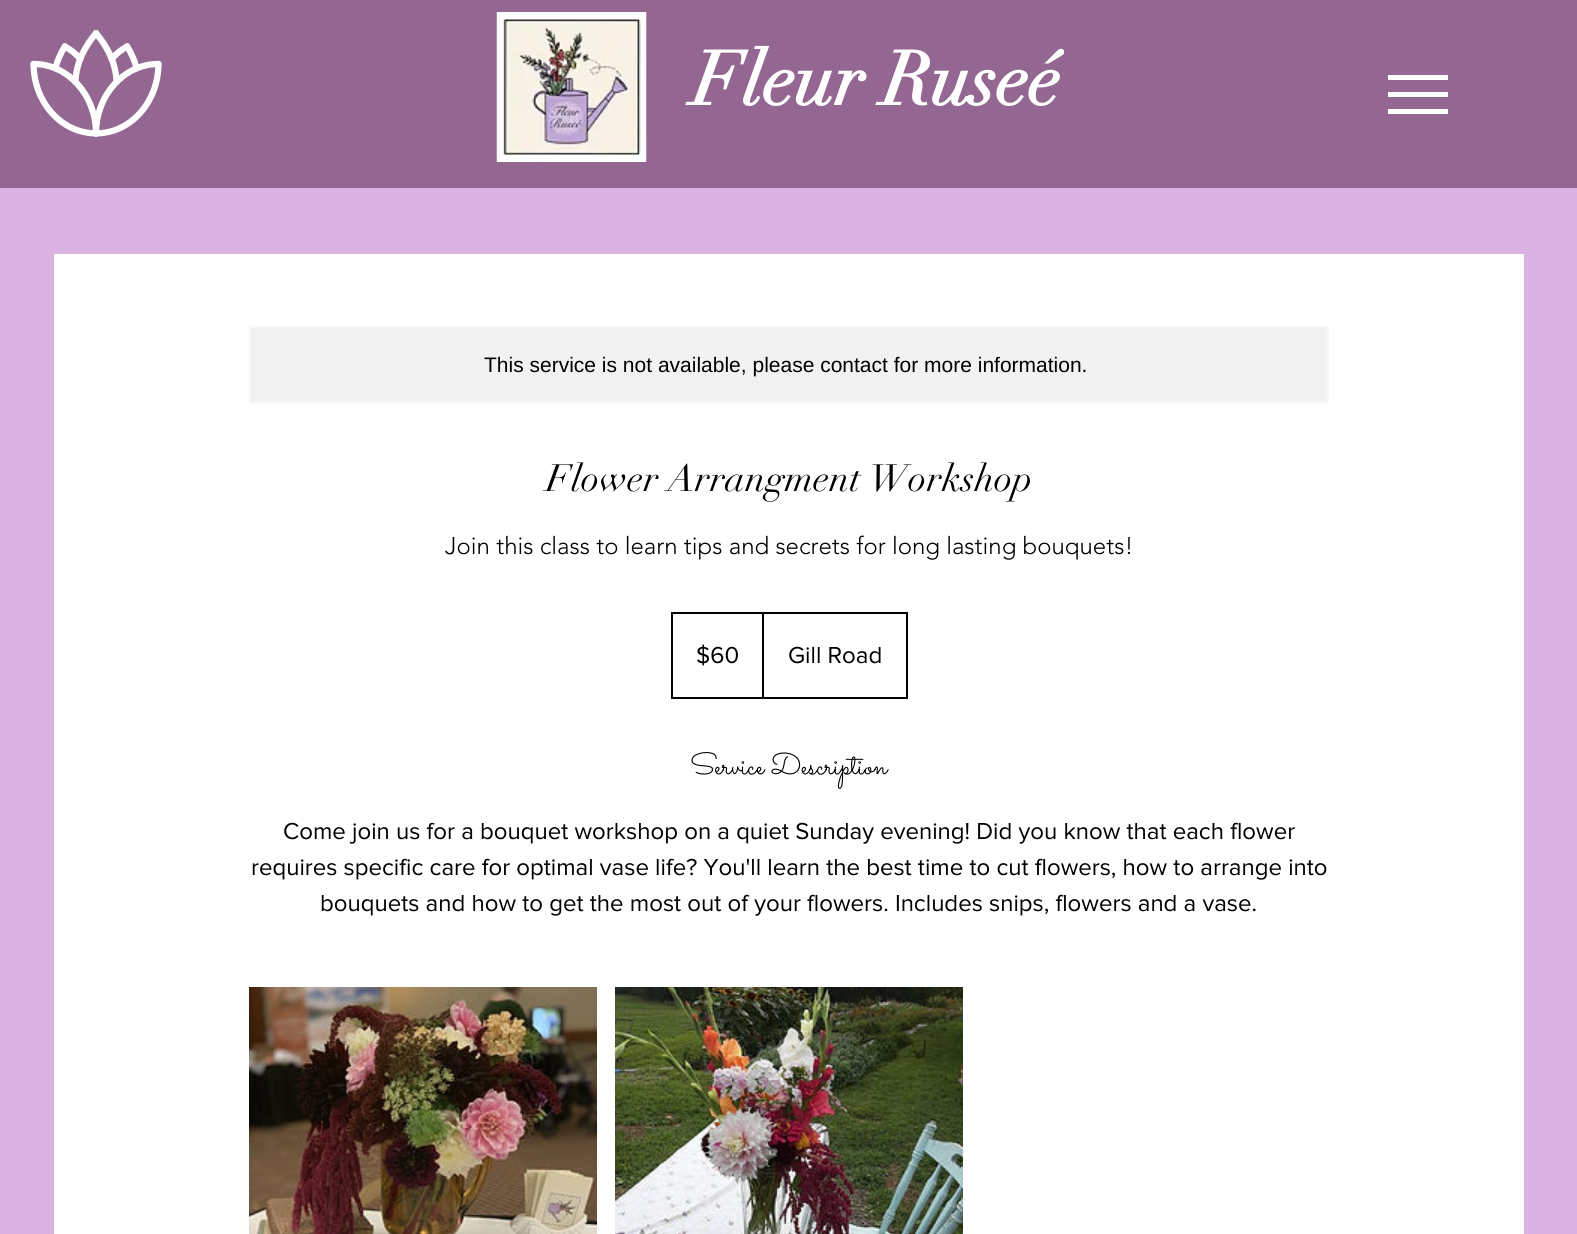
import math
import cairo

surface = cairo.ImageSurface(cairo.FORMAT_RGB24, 1577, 1234)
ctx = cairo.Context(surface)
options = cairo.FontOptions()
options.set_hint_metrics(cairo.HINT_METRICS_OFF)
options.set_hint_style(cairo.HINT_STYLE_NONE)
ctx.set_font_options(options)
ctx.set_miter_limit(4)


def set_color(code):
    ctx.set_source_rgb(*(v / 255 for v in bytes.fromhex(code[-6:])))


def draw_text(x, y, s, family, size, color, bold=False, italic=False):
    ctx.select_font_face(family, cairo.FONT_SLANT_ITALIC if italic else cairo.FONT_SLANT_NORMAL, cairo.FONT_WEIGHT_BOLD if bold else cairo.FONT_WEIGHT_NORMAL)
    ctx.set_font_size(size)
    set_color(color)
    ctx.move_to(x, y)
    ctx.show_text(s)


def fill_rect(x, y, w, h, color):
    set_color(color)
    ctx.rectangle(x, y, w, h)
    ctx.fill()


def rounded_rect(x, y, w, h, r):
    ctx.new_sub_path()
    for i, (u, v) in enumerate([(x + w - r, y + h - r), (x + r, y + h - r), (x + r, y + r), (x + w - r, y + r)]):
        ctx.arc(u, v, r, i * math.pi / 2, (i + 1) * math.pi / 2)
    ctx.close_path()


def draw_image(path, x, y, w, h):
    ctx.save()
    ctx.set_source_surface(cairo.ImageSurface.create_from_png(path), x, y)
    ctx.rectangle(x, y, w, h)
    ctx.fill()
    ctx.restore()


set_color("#dbb3e3")
ctx.paint()
fill_rect(0, 0, 1577, 188, "#936791")
draw_image("assets/img1.png", 30, 30, 132, 107)
draw_image("assets/img2.png", 496, 12, 151, 150)
draw_text(692, 105, "Fleur Ruseé", "didot", 75, "#ffffff", bold=True)
fill_rect(1388, 109, 60, 5, "#ffffff")
fill_rect(1388, 75, 60, 5, "#ffffff")
fill_rect(1388, 92, 60, 5, "#ffffff")
fill_rect(54, 254, 1470, 980, "#ffffff")
set_color("#f2f2f2")
rounded_rect(249, 326, 1080, 78, 3)
ctx.fill()
rounded_rect(250, 327, 1078, 76, 2)
ctx.set_source_rgba(1, 1, 1, 0.4)
ctx.stroke()
draw_text(484, 372, "This service is not available, please contact for more information.", "Liberation Sans", 21, "#000000")
draw_text(546, 491, "Flower Arrangment Workshop", "didot", 37.5, "#000000")
draw_text(445, 554, "Join this class to learn tips and secrets for long lasting bouquets!", "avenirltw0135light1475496 Light", 24, "#000000")
ctx.rectangle(672, 613, 235, 85)
ctx.stroke()
draw_text(696, 663, "$60", "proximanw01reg", 24, "#000000")
fill_rect(762, 614, 2, 84, "#000000")
draw_text(788, 663, "Gill Road", "proximanw01reg", 24, "#000000")
draw_text(690, 774, "Service Description", "Sacramento", 30, "#000000")
draw_text(283, 839, "Come join us for a bouquet workshop on a quiet Sunday evening! Did you know that each flower", "proximanw01reg", 24, "#000000")
draw_text(251, 875, "requires specific care for optimal vase life? You'll learn the best time to cut flowers, how to arrange into", "proximanw01reg", 24, "#000000")
draw_text(320, 911, "bouquets and how to get the most out of your flowers. Includes snips, flowers and a vase.", "proximanw01reg", 24, "#000000")
draw_image("assets/img3.png", 249, 987, 348, 247)
draw_image("assets/img4.png", 615, 987, 348, 247)
surface.write_to_png("output.png")
